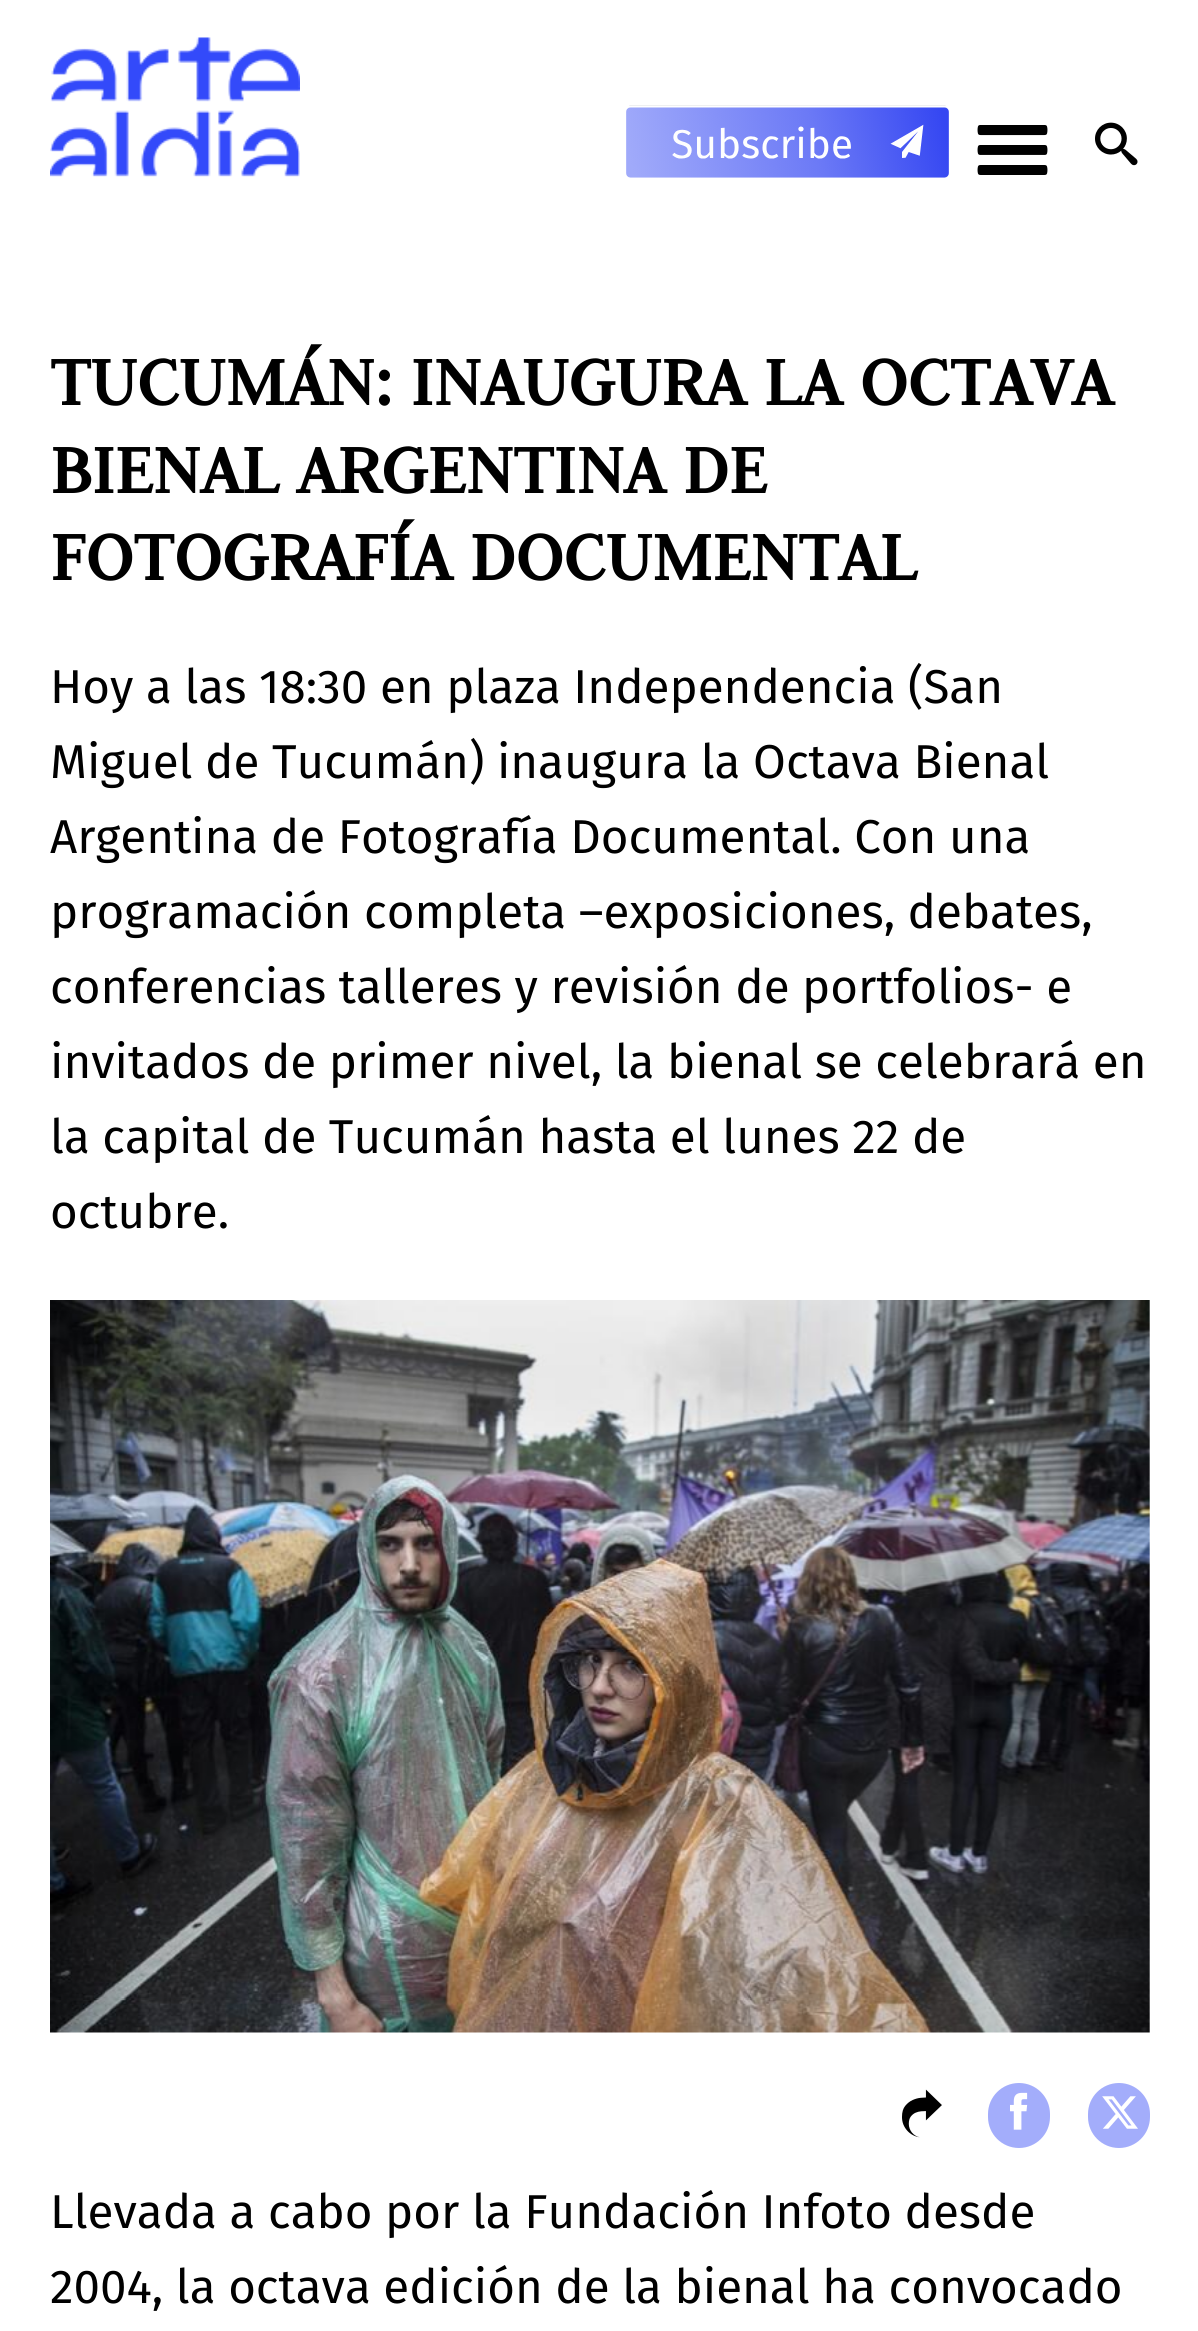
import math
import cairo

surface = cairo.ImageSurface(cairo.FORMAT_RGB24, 1198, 2331)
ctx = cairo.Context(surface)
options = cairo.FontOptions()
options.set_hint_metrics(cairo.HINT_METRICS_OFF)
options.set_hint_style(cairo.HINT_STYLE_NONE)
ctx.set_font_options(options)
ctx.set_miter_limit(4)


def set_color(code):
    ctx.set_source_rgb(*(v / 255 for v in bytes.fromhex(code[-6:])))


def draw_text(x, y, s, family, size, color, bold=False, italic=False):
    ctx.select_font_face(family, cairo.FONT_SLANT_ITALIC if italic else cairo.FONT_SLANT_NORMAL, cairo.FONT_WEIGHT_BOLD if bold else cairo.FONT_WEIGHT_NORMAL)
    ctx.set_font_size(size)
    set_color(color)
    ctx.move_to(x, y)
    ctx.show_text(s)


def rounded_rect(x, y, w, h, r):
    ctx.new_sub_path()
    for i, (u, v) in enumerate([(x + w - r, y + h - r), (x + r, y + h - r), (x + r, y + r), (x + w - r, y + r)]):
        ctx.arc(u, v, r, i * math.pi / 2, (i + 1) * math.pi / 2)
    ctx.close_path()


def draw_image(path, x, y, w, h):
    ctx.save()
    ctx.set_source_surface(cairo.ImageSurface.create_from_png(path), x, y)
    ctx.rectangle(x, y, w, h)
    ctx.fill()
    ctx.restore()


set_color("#ffffff")
ctx.paint()
draw_image("assets/img1.png", 50, 37, 250, 140)
draw_image("assets/img2.png", 626, 105, 323, 73)
draw_image("assets/img3.png", 977, 125, 71, 50)
draw_image("assets/img4.png", 1095, 122, 43, 44)
draw_text(50, 405, "TUCUMÁN: INAUGURA LA OCTAVA", "Judson", 75, "#000000", bold=True)
draw_text(50, 493, "BIENAL ARGENTINA DE", "Judson", 75, "#000000", bold=True)
draw_text(50, 580, "FOTOGRAFÍA DOCUMENTAL", "Judson", 75, "#000000", bold=True)
draw_text(50, 703, "Hoy a las 18:30 en plaza Independencia (San", "Fira Sans", 47.5, "#000000")
draw_text(50, 778, "Miguel de Tucumán) inaugura la Octava Bienal", "Fira Sans", 47.5, "#000000")
draw_text(50, 853, "Argentina de Fotografía Documental. Con una", "Fira Sans", 47.5, "#000000")
draw_text(50, 928, "programación completa –exposiciones, debates,", "Fira Sans", 47.5, "#000000")
draw_text(50, 1003, "conferencias talleres y revisión de portfolios- e", "Fira Sans", 47.5, "#000000")
draw_text(50, 1078, "invitados de primer nivel, la bienal se celebrará en", "Fira Sans", 47.5, "#000000")
draw_text(50, 1153, "la capital de Tucumán hasta el lunes 22 de", "Fira Sans", 47.5, "#000000")
draw_text(50, 1228, "octubre.", "Fira Sans", 47.5, "#000000")
draw_image("assets/img5.png", 50, 1300, 1100, 733)
draw_image("assets/img6.png", 902, 2089, 40, 49)
set_color("#a3adfb")
rounded_rect(988, 2083, 62, 65, 31)
ctx.fill()
draw_image("assets/img7.png", 1010, 2092, 18, 38)
rounded_rect(1088, 2083, 62, 65, 31)
ctx.fill()
draw_image("assets/img8.png", 1102, 2096, 36, 33)
draw_text(50, 2228, "Llevada a cabo por la Fundación Infoto desde", "Fira Sans", 47.5, "#000000")
draw_text(50, 2303, "2004, la octava edición de la bienal ha convocado", "Fira Sans", 47.5, "#000000")
surface.write_to_png("output.png")
